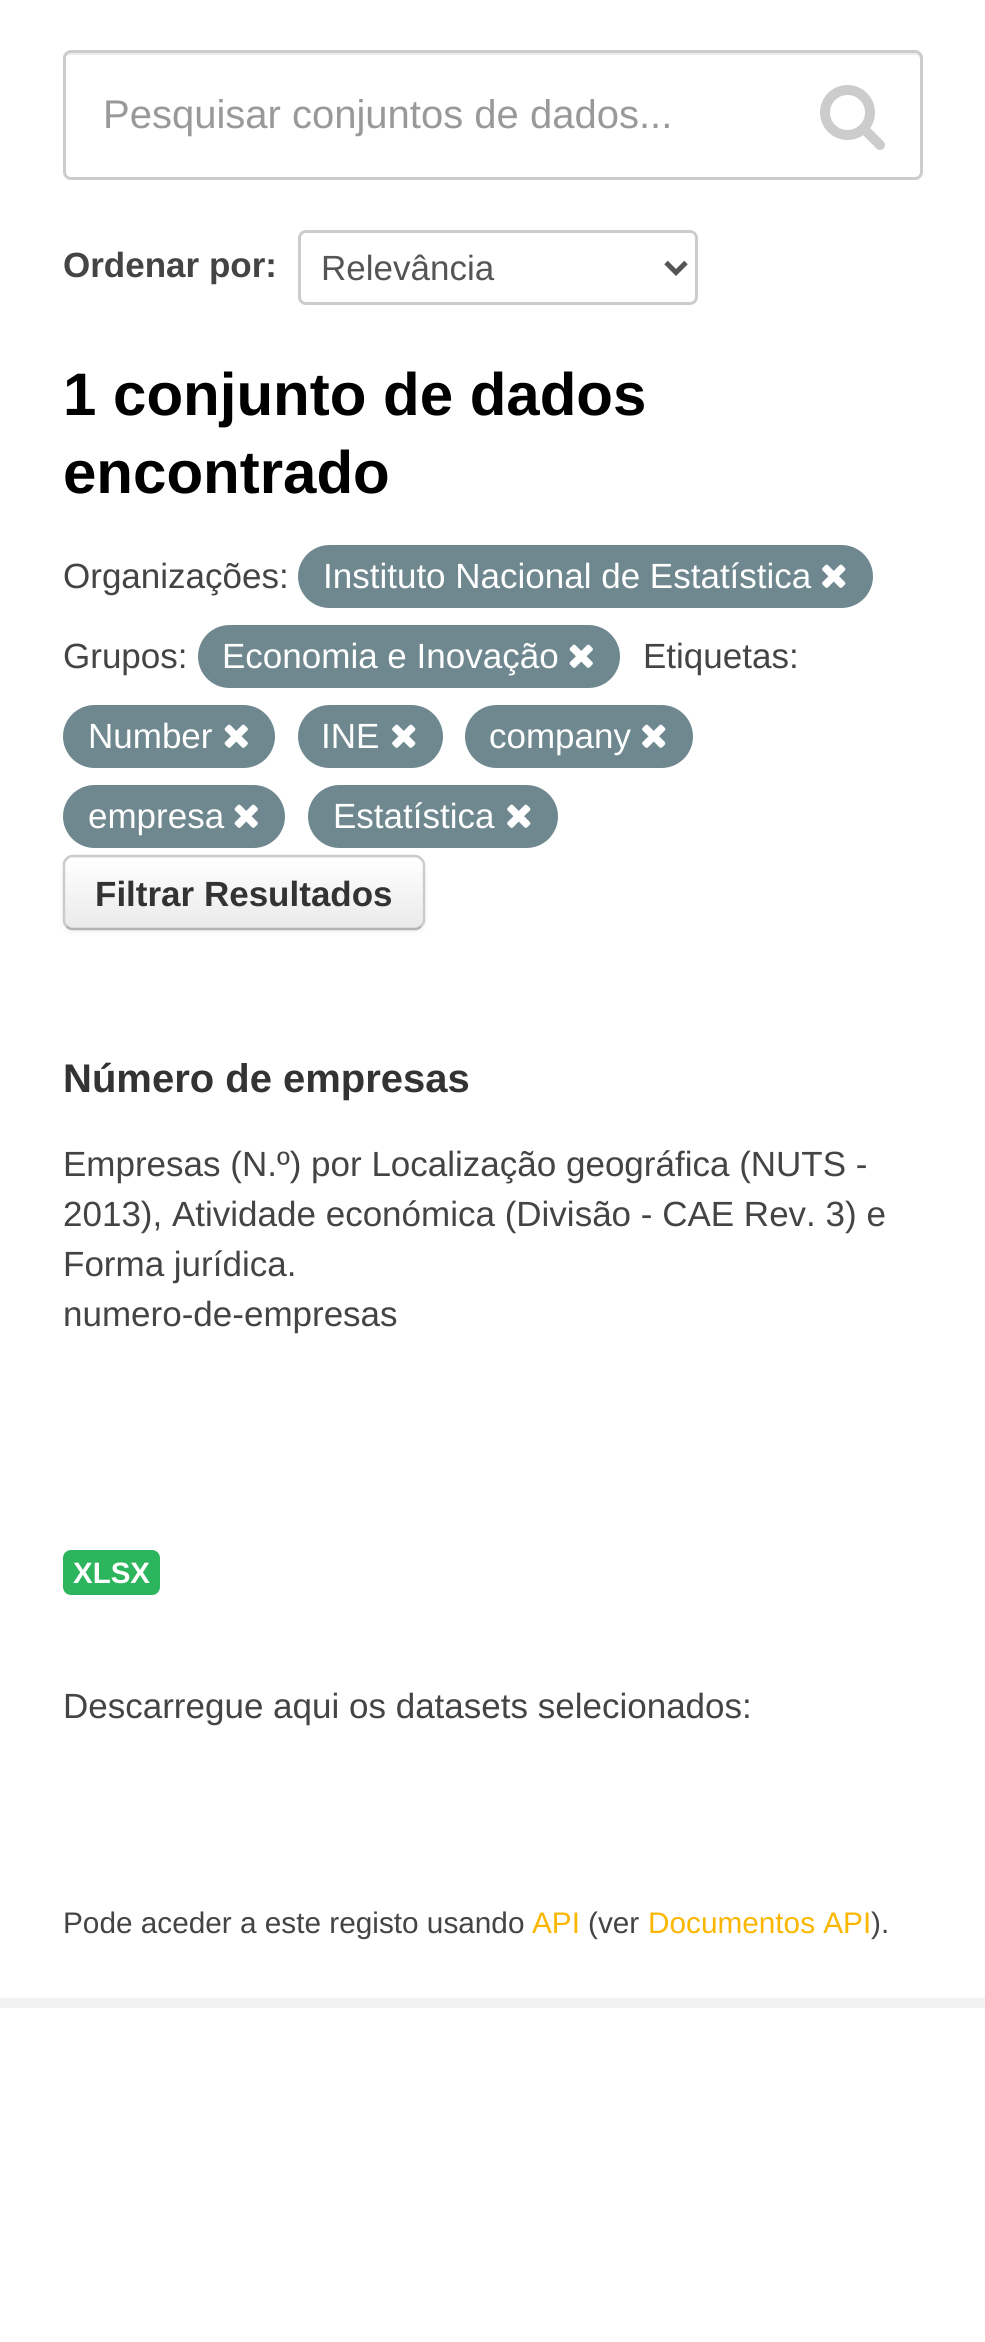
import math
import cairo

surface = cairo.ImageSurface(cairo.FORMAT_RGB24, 985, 2342)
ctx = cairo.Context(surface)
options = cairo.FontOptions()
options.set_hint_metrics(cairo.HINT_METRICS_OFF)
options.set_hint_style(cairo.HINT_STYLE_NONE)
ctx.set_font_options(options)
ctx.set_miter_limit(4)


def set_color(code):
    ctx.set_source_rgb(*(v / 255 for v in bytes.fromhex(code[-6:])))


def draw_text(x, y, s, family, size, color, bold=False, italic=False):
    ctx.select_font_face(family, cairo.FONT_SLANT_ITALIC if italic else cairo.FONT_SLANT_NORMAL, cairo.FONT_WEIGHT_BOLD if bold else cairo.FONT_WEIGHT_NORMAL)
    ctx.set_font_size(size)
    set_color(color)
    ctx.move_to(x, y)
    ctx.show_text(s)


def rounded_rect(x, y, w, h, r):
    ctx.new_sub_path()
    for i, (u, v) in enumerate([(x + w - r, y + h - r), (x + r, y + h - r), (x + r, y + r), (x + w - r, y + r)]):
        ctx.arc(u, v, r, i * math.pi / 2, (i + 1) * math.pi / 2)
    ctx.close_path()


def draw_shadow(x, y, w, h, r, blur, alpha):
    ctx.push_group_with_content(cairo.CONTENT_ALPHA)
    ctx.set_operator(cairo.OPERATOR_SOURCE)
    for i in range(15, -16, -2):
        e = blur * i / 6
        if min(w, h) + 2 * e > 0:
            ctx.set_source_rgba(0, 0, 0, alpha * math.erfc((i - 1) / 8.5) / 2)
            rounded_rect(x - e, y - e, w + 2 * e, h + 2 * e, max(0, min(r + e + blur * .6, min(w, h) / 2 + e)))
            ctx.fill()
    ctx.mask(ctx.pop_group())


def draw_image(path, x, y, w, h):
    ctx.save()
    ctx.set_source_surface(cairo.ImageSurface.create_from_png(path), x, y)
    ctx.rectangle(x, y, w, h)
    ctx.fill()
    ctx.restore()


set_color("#ffffff")
ctx.paint()
ctx.rectangle(-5, -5, 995, 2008)
set_color("#f2f2f2")
ctx.set_line_width(10)
ctx.stroke()
set_color("#ececec")
ctx.new_path()
ctx.move_to(70, 55)
ctx.line_to(915, 55)
ctx.curve_to(918, 55, 920, 57, 920, 60)
ctx.line_to(920, 58)
ctx.curve_to(920, 55, 918, 53, 915, 53)
ctx.line_to(70, 53)
ctx.curve_to(67, 53, 65, 55, 65, 58)
ctx.line_to(65, 60)
ctx.curve_to(65, 57, 67, 55, 70, 55)
ctx.close_path()
ctx.fill()
rounded_rect(64.5, 51.5, 857, 127, 6.5)
set_color("#cccccc")
ctx.set_line_width(3)
ctx.stroke()
draw_text(103, 128, "Pesquisar conjuntos de dados...", "Liberation Sans", 40, "#999999")
draw_image("assets/img1.png", 820, 85, 65, 65)
draw_text(63, 277, "Ordenar por:", "Liberation Sans", 35, "#444444", bold=True)
rounded_rect(299.5, 231.5, 397, 72, 6.5)
set_color("#cccccc")
ctx.stroke()
ctx.new_path()
ctx.move_to(666, 262.5)
ctx.line_to(676, 272.5)
ctx.line_to(686, 262.5)
set_color("#555555")
ctx.set_line_width(5)
ctx.stroke()
draw_text(321, 280, "Relevância", "Liberation Sans", 35, "#555555")
draw_text(63, 415, "1 conjunto de dados", "Liberation Sans", 60, "#000000", bold=True)
draw_text(63, 493, "encontrado", "Liberation Sans", 60, "#000000", bold=True)
draw_text(63, 588, "Organizações:", "Liberation Sans", 35, "#444444")
set_color("#6f8890")
rounded_rect(298, 545, 575, 63, 31.5)
ctx.fill()
draw_text(323, 588, "Instituto Nacional de Estatística", "Liberation Sans", 35, "#ffffff")
draw_image("assets/img2.png", 822, 564, 24, 24)
draw_text(63, 668, "Grupos:", "Liberation Sans", 35, "#444444")
set_color("#6f8890")
rounded_rect(198, 625, 422, 63, 31.5)
ctx.fill()
draw_text(222, 668, "Economia e Inovação", "Liberation Sans", 35, "#ffffff")
draw_image("assets/img3.png", 569, 644, 24, 24)
draw_text(643, 668, "Etiquetas:", "Liberation Sans", 35, "#444444")
set_color("#6f8890")
rounded_rect(63, 705, 212, 63, 31.5)
ctx.fill()
draw_text(88, 748, "Number", "Liberation Sans", 35, "#ffffff")
draw_image("assets/img3.png", 224, 724, 24, 24)
set_color("#6f8890")
rounded_rect(298, 705, 145, 63, 31.5)
ctx.fill()
draw_text(321, 748, "INE", "Liberation Sans", 35, "#ffffff")
draw_image("assets/img2.png", 392, 724, 24, 24)
set_color("#6f8890")
rounded_rect(465, 705, 228, 63, 31.5)
ctx.fill()
draw_text(489, 748, "company", "Liberation Sans", 35, "#ffffff")
draw_image("assets/img2.png", 642, 724, 24, 24)
set_color("#6f8890")
rounded_rect(63, 785, 222, 63, 31.5)
ctx.fill()
draw_text(88, 828, "empresa", "Liberation Sans", 35, "#ffffff")
draw_image("assets/img3.png", 234, 804, 24, 24)
set_color("#6f8890")
rounded_rect(308, 785, 250, 63, 31.5)
ctx.fill()
draw_text(333, 828, "Estatística", "Liberation Sans", 35, "#ffffff")
draw_image("assets/img2.png", 507, 804, 24, 24)
set_color("#000000")
draw_shadow(63, 858, 362, 75, 10, 2.5, 0.05)
set_color("#f7f7f7")
rounded_rect(63, 855, 362, 75, 10)
ctx.fill()
ctx.save()
rounded_rect(63, 855, 362, 75, 10)
ctx.clip()
gradient = cairo.LinearGradient(244, 858, 244, 928)
gradient.add_color_stop_rgba(0, 1, 1, 1, 1)
gradient.add_color_stop_rgba(1, 0.918, 0.918, 0.918, 1)
ctx.set_source(gradient)
ctx.rectangle(63, 858, 362, 70)
ctx.fill()
ctx.restore()
ctx.set_source_rgba(1, 1, 1, 0.2)
ctx.new_path()
ctx.move_to(72, 860)
ctx.line_to(415, 860)
ctx.curve_to(419, 860, 422, 863, 422, 868)
ctx.line_to(422, 924)
ctx.curve_to(423, 923, 423, 922, 423, 920)
ctx.line_to(423, 866)
ctx.curve_to(423, 862, 419, 858, 415, 858)
ctx.line_to(73, 858)
ctx.curve_to(69, 858, 65, 862, 65, 866)
ctx.line_to(65, 868)
ctx.curve_to(65, 863, 68, 860, 72, 860)
ctx.close_path()
ctx.fill()
ctx.new_path()
ctx.move_to(421, 926)
ctx.curve_to(419.5, 928, 417.5, 929, 415, 929)
ctx.line_to(72.5, 929)
ctx.curve_to(70, 929, 68, 928, 66.5, 926)
set_color("#b3b3b3")
ctx.set_line_width(2.5)
ctx.stroke()
ctx.new_path()
ctx.move_to(66.5, 926)
ctx.curve_to(64.5, 924.5, 64, 922.5, 64, 920)
ctx.line_to(64, 865)
ctx.curve_to(64, 862.5, 64.5, 860.5, 66.5, 859)
ctx.curve_to(68, 857, 70, 856, 72.5, 856)
ctx.line_to(415, 856)
ctx.curve_to(417.5, 856, 419.5, 857, 421, 859)
ctx.curve_to(423, 860.5, 424, 862.5, 424, 865)
ctx.line_to(424, 920)
ctx.curve_to(424, 922.5, 423, 924.5, 421, 926)
set_color("#cccccc")
ctx.stroke()
draw_text(95, 906, "Filtrar Resultados", "Liberation Sans", 35, "#333333", bold=True)
draw_text(63, 1092, "Número de empresas", "Liberation Sans", 40, "#333333", bold=True)
draw_text(63, 1176, "Empresas (N.º) por Localização geográfica (NUTS -", "Liberation Sans", 35, "#444444")
draw_text(63, 1226, "2013), Atividade económica (Divisão - CAE Rev. 3) e", "Liberation Sans", 35, "#444444")
draw_text(63, 1276, "Forma jurídica.", "Liberation Sans", 35, "#444444")
draw_text(63, 1326, "numero-de-empresas", "Liberation Sans", 35, "#444444")
set_color("#2db55d")
rounded_rect(63, 1550, 97, 45, 8)
ctx.fill()
draw_text(73, 1583, "XLSX", "Liberation Sans", 29.5, "#ffffff", bold=True)
draw_text(63, 1718, "Descarregue aqui os datasets selecionados:", "Liberation Sans", 35, "#444444")
draw_text(63, 1933, "Pode aceder a este registo usando", "Liberation Sans", 29.75, "#444444")
draw_text(532, 1933, "API", "Liberation Sans", 29.75, "#fbb600")
draw_text(588, 1933, "(ver", "Liberation Sans", 29.75, "#444444")
draw_text(648, 1933, "Documentos API", "Liberation Sans", 29.75, "#fbb600")
draw_text(871, 1933, ").", "Liberation Sans", 29.75, "#444444")
surface.write_to_png("output.png")
